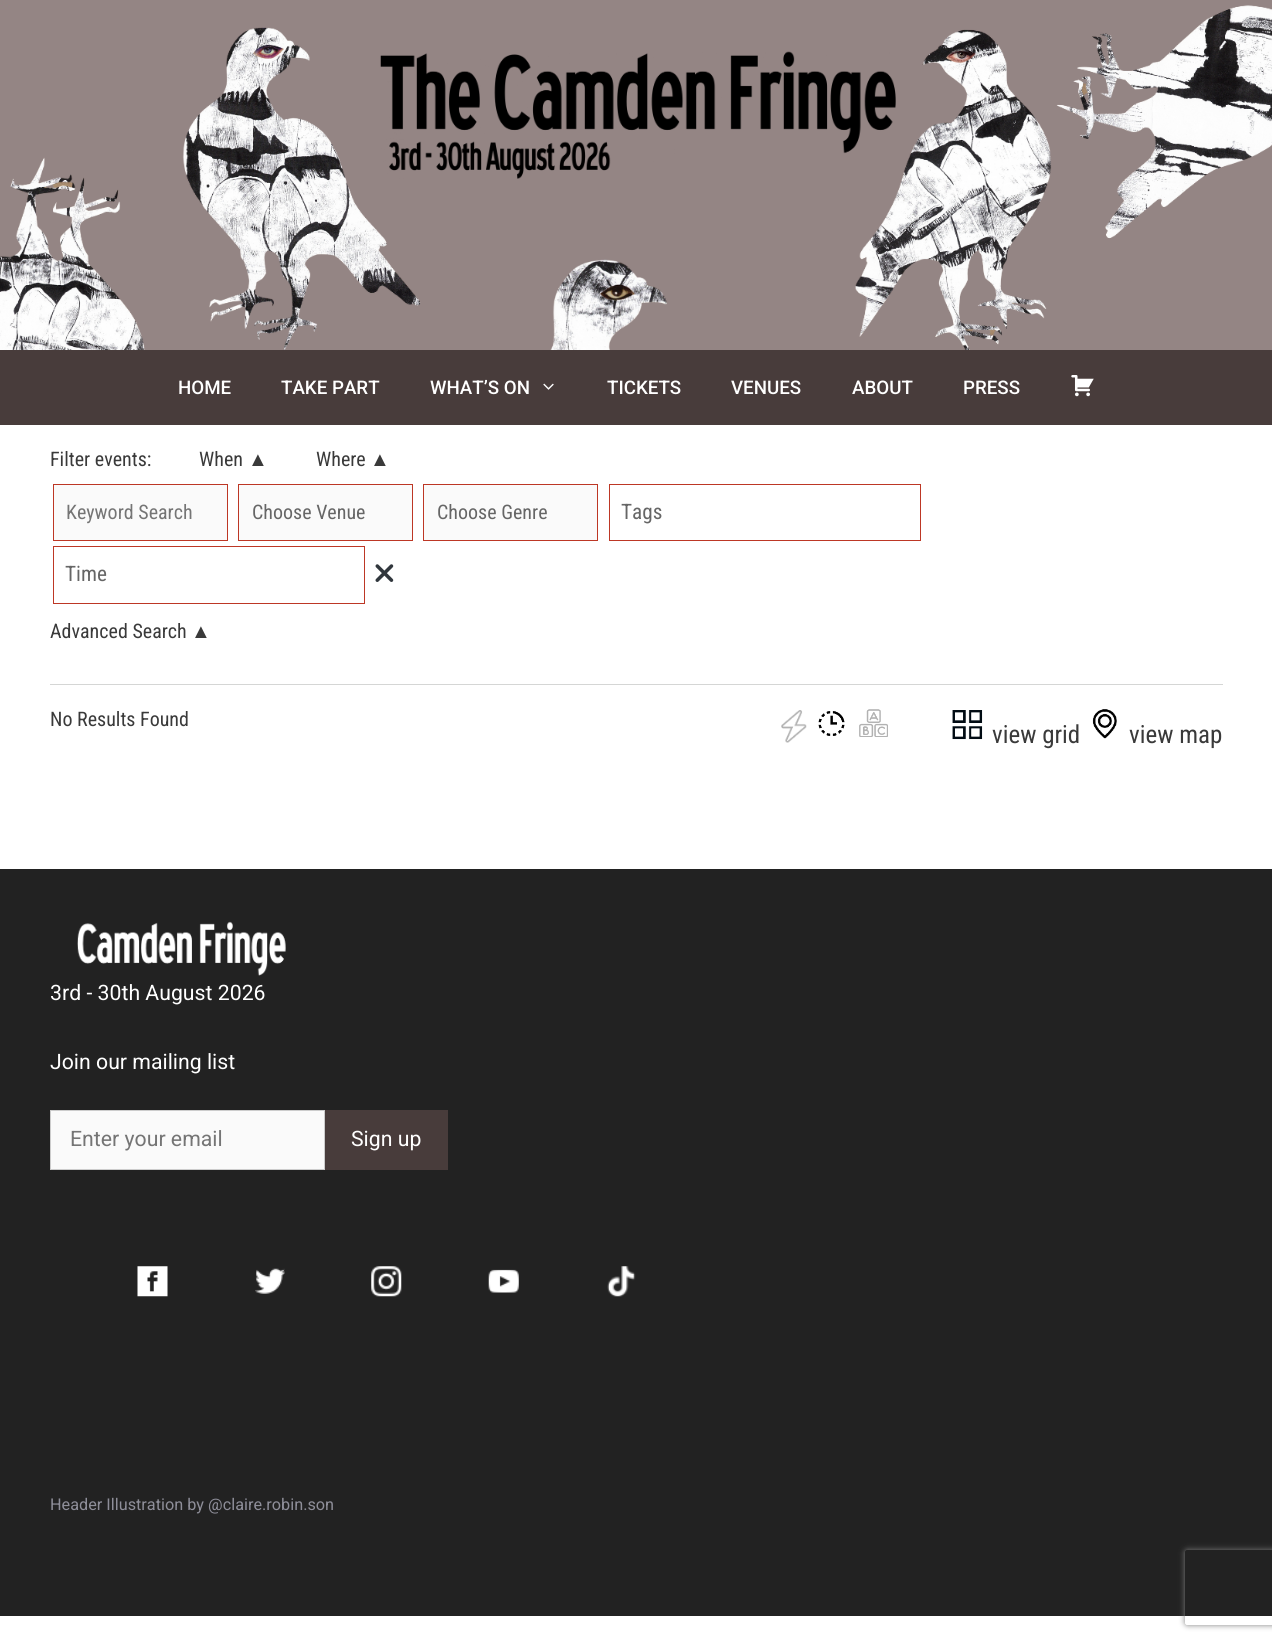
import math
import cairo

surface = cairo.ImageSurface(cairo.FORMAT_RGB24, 1272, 1642)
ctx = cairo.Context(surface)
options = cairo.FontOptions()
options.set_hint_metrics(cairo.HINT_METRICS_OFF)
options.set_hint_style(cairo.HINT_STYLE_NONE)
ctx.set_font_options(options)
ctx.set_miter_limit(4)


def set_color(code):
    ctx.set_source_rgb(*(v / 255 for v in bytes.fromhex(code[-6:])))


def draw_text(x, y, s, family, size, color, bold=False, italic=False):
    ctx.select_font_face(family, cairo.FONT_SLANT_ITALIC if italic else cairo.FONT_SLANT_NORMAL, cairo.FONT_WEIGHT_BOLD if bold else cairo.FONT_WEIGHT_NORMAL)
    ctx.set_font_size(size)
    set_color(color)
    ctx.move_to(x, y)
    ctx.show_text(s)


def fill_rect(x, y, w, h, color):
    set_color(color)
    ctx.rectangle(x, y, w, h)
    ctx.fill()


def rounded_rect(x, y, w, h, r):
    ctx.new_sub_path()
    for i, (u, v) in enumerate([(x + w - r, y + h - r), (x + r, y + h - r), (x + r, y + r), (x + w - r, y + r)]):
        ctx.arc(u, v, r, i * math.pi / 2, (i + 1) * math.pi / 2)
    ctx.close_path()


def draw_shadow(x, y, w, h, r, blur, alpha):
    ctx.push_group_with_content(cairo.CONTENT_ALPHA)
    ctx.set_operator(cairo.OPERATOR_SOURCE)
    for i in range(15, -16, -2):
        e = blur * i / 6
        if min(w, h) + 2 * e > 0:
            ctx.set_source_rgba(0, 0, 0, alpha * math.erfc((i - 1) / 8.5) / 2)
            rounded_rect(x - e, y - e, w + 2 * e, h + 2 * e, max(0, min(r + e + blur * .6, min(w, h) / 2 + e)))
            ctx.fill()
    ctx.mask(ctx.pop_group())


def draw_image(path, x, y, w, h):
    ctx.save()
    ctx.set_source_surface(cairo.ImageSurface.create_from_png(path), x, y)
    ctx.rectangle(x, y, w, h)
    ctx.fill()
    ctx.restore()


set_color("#ffffff")
ctx.paint()
draw_image("assets/img1.png", 0, 0, 1272, 350)
draw_image("assets/img2.png", 380, 51, 516, 128)
fill_rect(0, 350, 1272, 75, "#483c3b")
draw_text(178, 394, "HOME", "Roboto Medium", 18.75, "#ffffff")
draw_text(281, 394, "TAKE PART", "Roboto Medium", 18.75, "#ffffff")
draw_text(430, 394, "WHAT’S ON", "Roboto Medium", 18.75, "#ffffff")
draw_image("assets/img3.png", 543, 383, 11, 7)
draw_text(607, 394, "TICKETS", "Roboto Medium", 18.75, "#ffffff")
draw_text(731, 394, "VENUES", "Roboto Medium", 18.75, "#ffffff")
draw_text(852, 394, "ABOUT", "Roboto Medium", 18.75, "#ffffff")
draw_text(963, 394, "PRESS", "Roboto Medium", 18.75, "#ffffff")
draw_image("assets/img4.png", 1071, 375, 23, 22)
draw_text(50, 466, "Filter events:", "Roboto Condensed", 20, "#3a3a3a")
draw_text(199, 466, "When", "Roboto Condensed", 20, "#3a3a3a")
draw_text(248, 466, "▲", "Liberation Sans", 20, "#3a3a3a")
draw_text(316, 466, "Where", "Roboto Condensed", 20, "#3a3a3a")
draw_text(370, 466, "▲", "Liberation Sans", 20, "#3a3a3a")
set_color("#fafafa")
ctx.rectangle(53.5, 484.5, 174, 56)
ctx.fill_preserve()
set_color("#bd3725")
ctx.set_line_width(1)
ctx.stroke()
draw_text(66, 519, "Keyword Search", "Roboto Condensed", 20, "#757575")
set_color("#fafafa")
ctx.rectangle(238.5, 484.5, 174, 56)
ctx.fill_preserve()
set_color("#bd3725")
ctx.stroke()
draw_text(252, 519, "Choose Venue", "Roboto Condensed", 20, "#666666")
set_color("#fafafa")
ctx.rectangle(423.5, 484.5, 174, 56)
ctx.fill_preserve()
set_color("#bd3725")
ctx.stroke()
draw_text(437, 519, "Choose Genre", "Roboto Condensed", 20, "#666666")
ctx.rectangle(609.5, 484.5, 311, 56)
set_color("#bd3725")
ctx.stroke()
draw_text(621, 519, "Tags", "Roboto Condensed", 21.25, "#666666")
ctx.rectangle(53.5, 546.5, 311, 57)
set_color("#bd3725")
ctx.stroke()
draw_text(65, 581, "Time", "Roboto Condensed", 21.25, "#666666")
draw_image("assets/img5.png", 375, 564, 19, 18)
draw_text(50, 638, "Advanced Search", "Roboto Condensed", 20, "#3a3a3a")
draw_text(191, 638, "▲", "Liberation Sans", 20, "#3a3a3a")
fill_rect(50, 684, 1173, 1, "#d5d6d5")
draw_text(50, 726, "No Results Found", "Roboto Condensed", 20, "#3a3a3a")
draw_image("assets/img6.png", 781, 710, 26, 33)
draw_image("assets/img7.png", 818, 711, 27, 25)
draw_image("assets/img8.png", 859, 709, 29, 28)
draw_image("assets/img9.png", 952, 710, 31, 30)
draw_text(992, 743, "view grid", "Roboto Condensed", 25, "#3a3a3a")
draw_image("assets/img10.png", 1092, 709, 25, 30)
draw_text(1129, 743, "view map", "Roboto Condensed", 25, "#3a3a3a")
fill_rect(0, 869, 1272, 747, "#222222")
draw_image("assets/img11.png", 77, 921, 209, 55)
draw_text(50, 1000, "3rd - 30th August 2026", "Roboto", 21.25, "#ffffff")
draw_text(50, 1069, "Join our mailing list", "Roboto", 21.25, "#ffffff")
set_color("#fafafa")
ctx.rectangle(50.5, 1110.5, 274, 59)
ctx.fill_preserve()
set_color("#cccccc")
ctx.stroke()
draw_text(70, 1146, "Enter your email", "Roboto", 21.25, "#757575")
fill_rect(325, 1110, 123, 60, "#483c3b")
draw_text(351, 1146, "Sign up", "Roboto", 21.25, "#ffffff")
draw_image("assets/img12.png", 137, 1266, 31, 31)
draw_image("assets/img13.png", 255, 1268, 30, 26)
draw_image("assets/img14.png", 371, 1266, 31, 31)
draw_image("assets/img15.png", 488, 1269, 31, 24)
draw_image("assets/img16.png", 607, 1266, 29, 31)
draw_text(50, 1510, "Header Illustration by @claire.robin.son", "Roboto", 16.25, "#8e8e99")
ctx.save()
ctx.set_fill_rule(cairo.FILL_RULE_EVEN_ODD)
ctx.new_path()
ctx.move_to(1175, 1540)
ctx.line_to(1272, 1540)
ctx.line_to(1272, 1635)
ctx.line_to(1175, 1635)
ctx.close_path()
ctx.move_to(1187.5, 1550)
ctx.line_to(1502.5, 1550)
ctx.curve_to(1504, 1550, 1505, 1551, 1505, 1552.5)
ctx.line_to(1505, 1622.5)
ctx.curve_to(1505, 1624, 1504, 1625, 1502.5, 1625)
ctx.line_to(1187.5, 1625)
ctx.curve_to(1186, 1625, 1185, 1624, 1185, 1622.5)
ctx.line_to(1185, 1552.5)
ctx.curve_to(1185, 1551, 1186, 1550, 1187.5, 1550)
ctx.close_path()
ctx.clip()
set_color("#808080")
draw_shadow(1185, 1550, 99, 75, 2.5, 3, 1)
ctx.restore()
surface.write_to_png("output.png")
